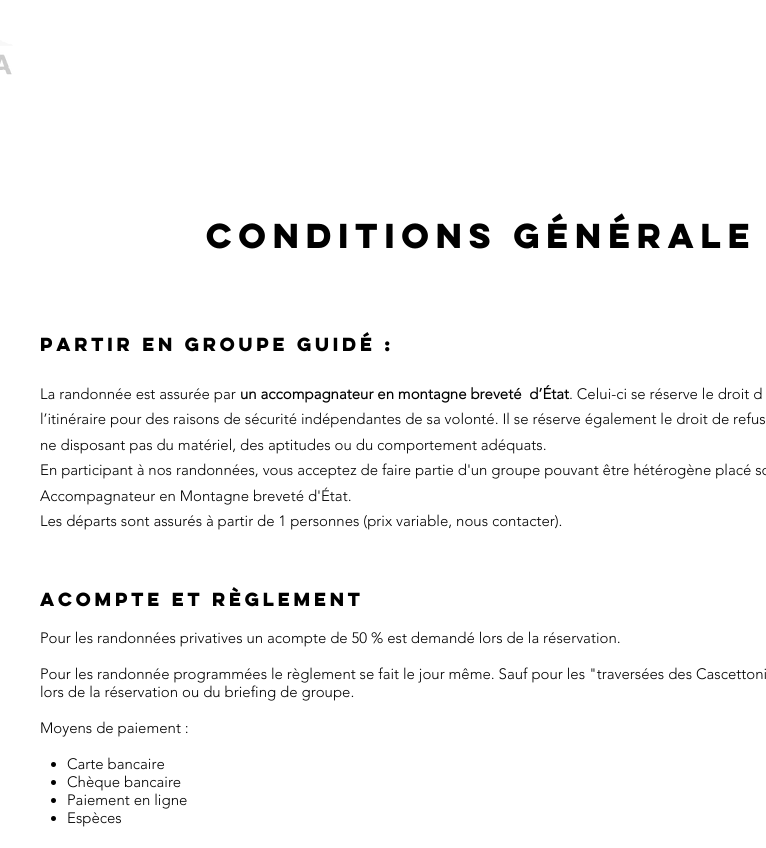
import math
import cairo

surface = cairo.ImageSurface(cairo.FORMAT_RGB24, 766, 848)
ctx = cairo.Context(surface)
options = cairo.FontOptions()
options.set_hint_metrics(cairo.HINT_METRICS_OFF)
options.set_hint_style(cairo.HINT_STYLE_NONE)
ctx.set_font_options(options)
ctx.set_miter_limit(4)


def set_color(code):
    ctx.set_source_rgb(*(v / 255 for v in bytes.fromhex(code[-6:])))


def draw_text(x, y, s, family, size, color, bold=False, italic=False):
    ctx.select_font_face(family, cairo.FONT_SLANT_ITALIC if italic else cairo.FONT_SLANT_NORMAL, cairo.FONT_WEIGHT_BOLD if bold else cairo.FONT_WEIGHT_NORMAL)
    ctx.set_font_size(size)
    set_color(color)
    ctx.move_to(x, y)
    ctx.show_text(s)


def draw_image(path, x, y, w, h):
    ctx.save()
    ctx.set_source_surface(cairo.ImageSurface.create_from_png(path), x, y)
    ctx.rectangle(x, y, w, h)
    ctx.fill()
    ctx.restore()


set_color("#ffffff")
ctx.paint()
draw_image("assets/img1.png", 0, 40, 13, 35)
draw_text(206, 248, "Conditions générale", "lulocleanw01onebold", 31, "#000000", bold=True)
draw_text(40, 351, "Partir en groupe guidé :", "lulocleanw01onebold", 17, "#000000", bold=True)
draw_text(40, 399, "La randonnée est assurée par", "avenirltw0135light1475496 Light", 15, "#000000")
draw_text(240, 399, "un accompagnateur en montagne breveté  d’État", "avenirltw0135light1475496", 15, "#000000", bold=True)
draw_text(569, 399, ". Celui-ci se réserve le droit d", "avenirltw0135light1475496 Light", 15, "#000000")
draw_text(40, 424, "l’itinéraire pour des raisons de sécurité indépendantes de sa volonté. Il se réserve également le droit de refus", "avenirltw0135light1475496 Light", 15, "#000000")
draw_text(40, 450, "ne disposant pas du matériel, des aptitudes ou du comportement adéquats.", "avenirltw0135light1475496 Light", 15, "#000000")
draw_text(40, 475, "En participant à nos randonnées, vous acceptez de faire partie d'un groupe pouvant être hétérogène placé so", "avenirltw0135light1475496 Light", 15, "#000000")
draw_text(40, 501, "Accompagnateur en Montagne breveté d'État.", "avenirltw0135light1475496 Light", 15, "#000000")
draw_text(40, 526, "Les départs sont assurés à partir de 1 personnes (prix variable, nous contacter).", "avenirltw0135light1475496 Light", 15, "#000000")
draw_text(40, 606, "Acompte et règlement", "lulocleanw01onebold", 17, "#000000", bold=True)
draw_text(40, 643, "Pour les randonnées privatives un acompte de 50 % est demandé lors de la réservation.", "avenirltw0135light1475496 Light", 15, "#000000")
draw_text(40, 679, "Pour les randonnée programmées le règlement se fait le jour même. Sauf pour les \"traversées des Cascettoni", "avenirltw0135light1475496 Light", 15, "#000000")
draw_text(40, 697, "lors de la réservation ou du briefing de groupe.", "avenirltw0135light1475496 Light", 15, "#000000")
draw_text(40, 733, "Moyens de paiement :", "avenirltw0135light1475496 Light", 15, "#000000")
ctx.new_path()
ctx.arc(53.5, 764.5, 2.5, 0, 2 * math.pi)
ctx.fill()
draw_text(67, 769, "Carte bancaire", "avenirltw0135light1475496 Light", 15, "#000000")
ctx.new_path()
ctx.arc(53.5, 782.5, 2.5, 0, 2 * math.pi)
ctx.fill()
draw_text(67, 787, "Chèque bancaire", "avenirltw0135light1475496 Light", 15, "#000000")
ctx.new_path()
ctx.arc(53.5, 800.5, 2.5, 0, 2 * math.pi)
ctx.fill()
draw_text(67, 805, "Paiement en ligne", "avenirltw0135light1475496 Light", 15, "#000000")
ctx.new_path()
ctx.arc(53.5, 818.5, 2.5, 0, 2 * math.pi)
ctx.fill()
draw_text(67, 823, "Espèces", "avenirltw0135light1475496 Light", 15, "#000000")
surface.write_to_png("output.png")
